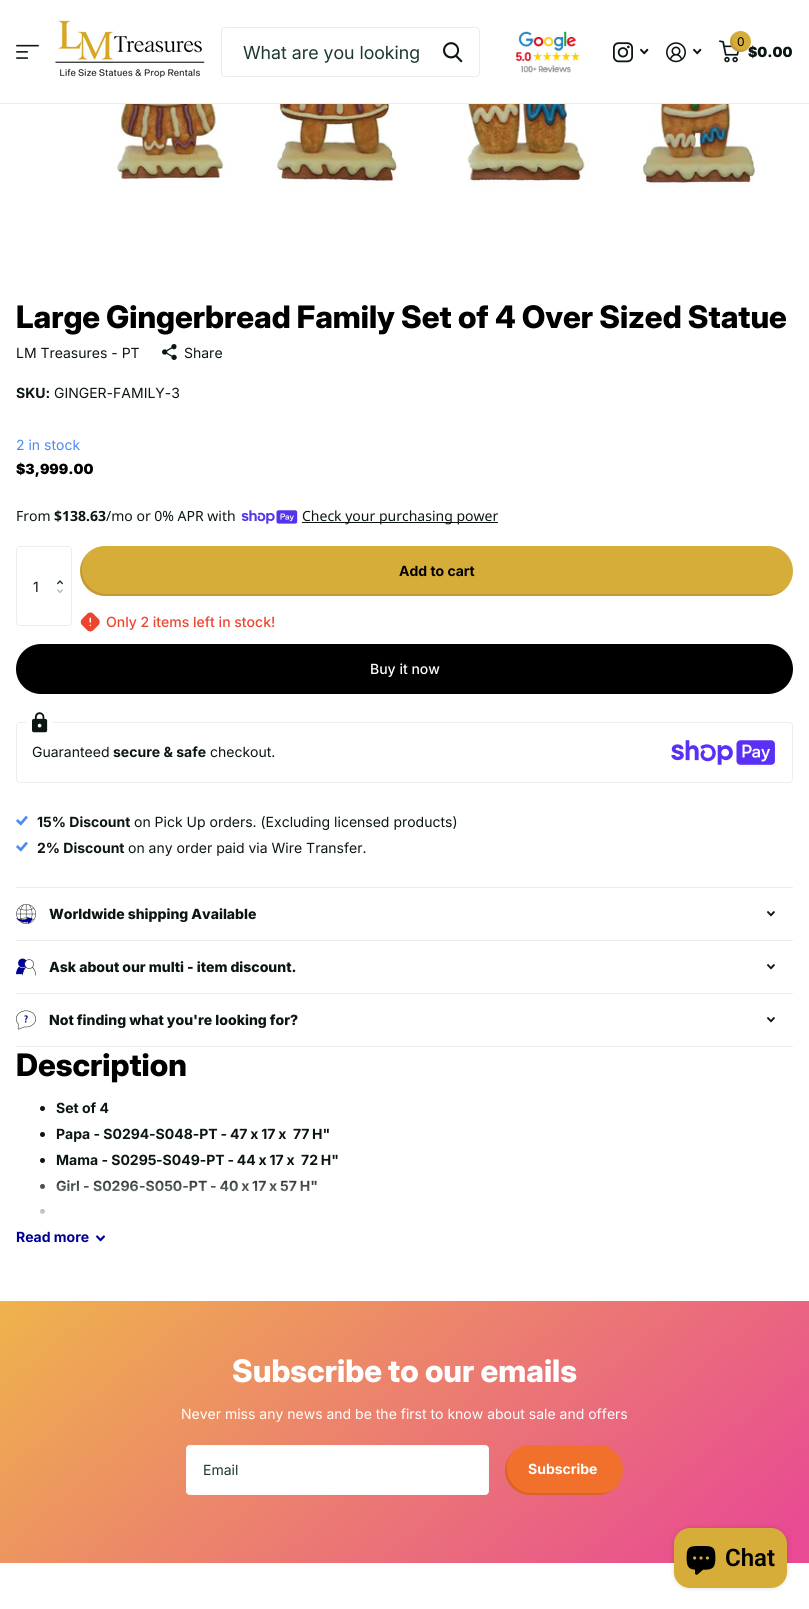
import math
import cairo

surface = cairo.ImageSurface(cairo.FORMAT_RGB24, 809, 1609)
ctx = cairo.Context(surface)
options = cairo.FontOptions()
options.set_hint_metrics(cairo.HINT_METRICS_OFF)
options.set_hint_style(cairo.HINT_STYLE_NONE)
ctx.set_font_options(options)
ctx.set_miter_limit(4)


def set_color(code):
    ctx.set_source_rgb(*(v / 255 for v in bytes.fromhex(code[-6:])))


def draw_text(x, y, s, family, size, color, bold=False, italic=False):
    ctx.select_font_face(family, cairo.FONT_SLANT_ITALIC if italic else cairo.FONT_SLANT_NORMAL, cairo.FONT_WEIGHT_BOLD if bold else cairo.FONT_WEIGHT_NORMAL)
    ctx.set_font_size(size)
    set_color(color)
    ctx.move_to(x, y)
    ctx.show_text(s)


def draw_spaced(x, y, s, letter, word):
    ctx.move_to(x, y)
    for ch in s:
        ctx.show_text(ch)
        ctx.rel_move_to(letter + word * (ch == ' '), 0)


def fill_rect(x, y, w, h, color):
    set_color(color)
    ctx.rectangle(x, y, w, h)
    ctx.fill()


def rounded_rect(x, y, w, h, r):
    ctx.new_sub_path()
    for i, (u, v) in enumerate([(x + w - r, y + h - r), (x + r, y + h - r), (x + r, y + r), (x + w - r, y + r)]):
        ctx.arc(u, v, r, i * math.pi / 2, (i + 1) * math.pi / 2)
    ctx.close_path()


def draw_shadow(x, y, w, h, r, blur, alpha):
    ctx.push_group_with_content(cairo.CONTENT_ALPHA)
    ctx.set_operator(cairo.OPERATOR_SOURCE)
    for i in range(15, -16, -2):
        e = blur * i / 6
        if min(w, h) + 2 * e > 0:
            ctx.set_source_rgba(0, 0, 0, alpha * math.erfc((i - 1) / 8.5) / 2)
            rounded_rect(x - e, y - e, w + 2 * e, h + 2 * e, max(0, min(r + e + blur * .6, min(w, h) / 2 + e)))
            ctx.fill()
    ctx.mask(ctx.pop_group())


def draw_image(path, x, y, w, h):
    ctx.save()
    ctx.set_source_surface(cairo.ImageSurface.create_from_png(path), x, y)
    ctx.rectangle(x, y, w, h)
    ctx.fill()
    ctx.restore()


set_color("#ffffff")
ctx.paint()
draw_image("assets/img1.png", 16, 44, 23, 15)
draw_image("assets/img2.png", 55, 20, 150, 58)
rounded_rect(221.5, 27.5, 258, 49, 3.5)
set_color("#ecedec")
ctx.set_line_width(1)
ctx.stroke()
draw_text(243, 59, "What are you looking", "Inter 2", 18, "#1c3830")
draw_image("assets/img3.png", 443, 42, 20, 21)
draw_image("assets/img4.png", 515, 31, 65, 42)
draw_image("assets/img5.png", 613, 42, 20, 21)
draw_image("assets/img6.png", 640, 48, 9, 7)
draw_image("assets/img7.png", 666, 42, 20, 21)
draw_image("assets/img6.png", 693, 48, 9, 7)
draw_image("assets/img8.png", 719, 40, 20, 23)
draw_text(748, 57, "$0.00", "Inter Black", 14, "#0b1613")
set_color("#d7ad39")
ctx.new_path()
ctx.arc(740.5, 41.5, 10.5, 0, 2 * math.pi)
ctx.fill()
ctx.set_source_rgba(0, 0, 0, 0.1)
ctx.new_path()
ctx.move_to(749, 47.5)
ctx.curve_to(747.5, 49, 745, 50, 742, 50)
ctx.curve_to(733, 50, 730, 39.5, 734, 33.5)
ctx.curve_to(729, 37, 728.5, 44.5, 733, 49)
ctx.curve_to(737.5, 53.5, 745.5, 53, 749, 47.5)
ctx.close_path()
ctx.fill()
draw_text(737, 46, "0", "Inter", 12, "#000000")
fill_rect(0, 103, 809, 1, "#ecedec")
draw_image("assets/img9.png", 95, 104, 690, 83)
draw_text(16, 328, "Large Gingerbread Family Set of 4 Over Sized Statue", "Inter ExtraBold", 31, "#000000")
draw_text(16, 358, "LM Treasures - PT", "Inter", 14, "#0b1613")
draw_image("assets/img10.png", 162, 344, 15, 16)
draw_text(184, 358, "Share", "Inter", 14, "#0b1613")
draw_text(16, 398, "SKU:", "Inter", 14, "#0b1613", bold=True)
draw_text(54, 398, "GINGER-FAMILY-3", "Inter", 14, "#0b1613")
draw_text(16, 450, "2 in stock", "Inter", 14, "#4c89ef")
draw_text(16, 474, "$3,999.00", "Inter Black", 14, "#000000")
draw_text(16, 521, "From", "Noto Sans", 14, "#0b1613")
draw_text(54, 521, "$138.63", "Noto Sans", 14, "#0b1613", bold=True)
draw_text(106, 521, "/mo or 0% APR with", "Noto Sans", 14, "#0b1613")
draw_image("assets/img11.png", 241, 510, 57, 14)
fill_rect(302, 522, 196, 1, "#0b1613")
draw_text(302, 521, "Check your purchasing power", "Noto Sans", 14, "#0b1613")
rounded_rect(16.5, 546.5, 55, 79, 3.5)
set_color("#ecedec")
ctx.stroke()
draw_text(33, 592, "1", "Inter", 14, "#0b1613")
draw_image("assets/img12.png", 57, 580, 6, 5)
draw_image("assets/img13.png", 57, 589, 6, 5)
set_color("#d7ad39")
rounded_rect(80, 546, 713, 50, 25)
ctx.fill()
ctx.set_source_rgba(0, 0, 0, 0.1)
ctx.new_path()
ctx.move_to(88, 553)
ctx.curve_to(72, 568, 82, 596, 105, 596)
ctx.line_to(771, 596)
ctx.curve_to(776, 595, 782, 593, 786, 588)
ctx.curve_to(782, 592, 776, 594, 770, 594)
ctx.line_to(107, 594)
ctx.curve_to(93, 594, 82, 583, 82, 569)
ctx.curve_to(82, 563, 84, 557, 88, 553)
ctx.close_path()
ctx.fill()
draw_text(399, 576, "Add to cart", "Inter", 14, "#000000", bold=True)
draw_image("assets/img14.png", 80, 612, 20, 20)
draw_text(106, 627, "Only 2 items left in stock!", "Inter Medium", 14, "#ee442e")
set_color("#000000")
rounded_rect(16, 644, 777, 50, 25)
ctx.fill()
ctx.set_source_rgba(0, 0, 0, 0.1)
ctx.new_path()
ctx.move_to(24, 651)
ctx.curve_to(8, 666, 18, 694, 41, 694)
ctx.line_to(771, 694)
ctx.curve_to(776, 693, 782, 691, 786, 686)
ctx.curve_to(782, 690, 776, 692, 770, 692)
ctx.line_to(43, 692)
ctx.curve_to(29, 692, 18, 681, 18, 667)
ctx.curve_to(18, 661, 20, 655, 24, 651)
ctx.close_path()
ctx.fill()
draw_text(370, 674, "Buy it now", "Inter Medium", 14, "#ffffff")
rounded_rect(16.5, 722.5, 776, 60, 3.5)
set_color("#ecedec")
ctx.stroke()
fill_rect(26, 722, 27, 1, "#ffffff")
draw_image("assets/img15.png", 32, 712, 16, 21)
draw_text(32, 757, "Guaranteed", "Inter", 14, "#0b1613")
draw_text(113, 757, "secure & safe", "Inter", 14, "#0b1613", bold=True)
draw_text(210, 757, "checkout.", "Inter", 14, "#0b1613")
draw_image("assets/img16.png", 671, 740, 104, 25)
draw_image("assets/img17.png", 16, 815, 12, 11)
draw_text(37, 827, "15% Discount", "Inter", 14, "#0b1613", bold=True)
draw_text(134, 827, "on Pick Up orders. (Excluding licensed products)", "Inter", 14, "#0b1613")
draw_image("assets/img17.png", 16, 841, 12, 11)
draw_text(37, 853, "2% Discount", "Inter", 14, "#0b1613", bold=True)
draw_text(128, 853, "on any order paid via Wire Transfer.", "Inter", 14, "#0b1613")
fill_rect(16, 887, 777, 1, "#ecedec")
fill_rect(16, 940, 777, 1, "#ecedec")
draw_image("assets/img18.png", 16, 904, 20, 20)
draw_text(49, 919, "Worldwide shipping Available", "Inter 2 ExtraBold", 14, "#0b1613")
draw_image("assets/img19.png", 767, 911, 8, 6)
draw_image("assets/img20.png", 16, 958, 20, 18)
draw_text(49, 972, "Ask about our multi - item discount.", "Inter 2 ExtraBold", 14, "#0b1613")
draw_image("assets/img19.png", 767, 964, 8, 6)
fill_rect(16, 993, 777, 1, "#ecedec")
draw_image("assets/img21.png", 16, 1010, 20, 20)
draw_text(49, 1025, "Not finding what you're looking for?", "Inter 2 ExtraBold", 14, "#0b1613")
draw_image("assets/img19.png", 767, 1017, 8, 6)
fill_rect(16, 1046, 777, 1, "#ecedec")
draw_text(16, 1076, "Description", "Inter ExtraBold", 31, "#000000")
set_color("#0b1613")
ctx.new_path()
ctx.arc(42.5, 1108.5, 2.5, 0, 2 * math.pi)
ctx.fill()
draw_text(56, 1113, "Set of 4", "Inter", 14, "#0b1613", bold=True)
ctx.new_path()
ctx.arc(42.5, 1134.5, 2.5, 0, 2 * math.pi)
ctx.fill()
draw_text(56, 1139, "Papa - S0294", "Inter", 14, "#0b1613", bold=True)
draw_spaced(149, 1139, "-S048-PT - 47 x 17 x", 0, -0.5)
draw_spaced(293, 1139, "77 H\"", 0, -0.5)
ctx.new_path()
ctx.arc(42.5, 1160.5, 2.5, 0, 2 * math.pi)
ctx.fill()
draw_text(56, 1165, "Mama - S0295", "Inter", 14, "#0b1613", bold=True)
draw_spaced(156, 1165, "-S049-PT - 44 x 17 x", 0, -0.5)
draw_spaced(301, 1165, "72 H\"", 0, -0.5)
ctx.new_path()
ctx.arc(42.5, 1186.5, 2.5, 0, 2 * math.pi)
ctx.fill()
draw_text(56, 1191, "Girl - S0296", "Inter", 14, "#0b1613", bold=True)
draw_spaced(139, 1191, "-S050-PT - 40 x 17 x 57 H\"", 0, -0.5)
ctx.new_path()
ctx.arc(42.5, 1211.5, 2.5, 0, 2 * math.pi)
ctx.fill()
gradient = cairo.LinearGradient(405, 1173, 405, 1224)
gradient.add_color_stop_rgba(0, 1, 1, 1, 0)
gradient.add_color_stop_rgba(1, 1, 1, 1, 1)
ctx.set_source(gradient)
ctx.rectangle(40, 1180, 280, 34)
ctx.fill()
draw_text(16, 1242, "Read more", "Inter", 14, "#000096", bold=True)
draw_image("assets/img22.png", 96, 1235, 9, 7)
gradient = cairo.LinearGradient(636, 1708, 173, 1156)
gradient.add_color_stop_rgba(0.04, 0.91, 0.29, 0.576, 1)
gradient.add_color_stop_rgba(1, 0.937, 0.702, 0.298, 1)
ctx.set_source(gradient)
ctx.rectangle(0, 1301, 809, 262)
ctx.fill()
draw_text(232, 1382, "Subscribe to our emails", "Inter ExtraBold", 31, "#ffffff")
draw_text(181, 1419, "Never miss any news and be the first to know about sale and offers", "Inter", 14, "#ffffff")
rounded_rect(186.5, 1445.5, 302, 49, 3.5)
ctx.fill_preserve()
set_color("#fafafa")
ctx.stroke()
draw_text(203, 1475, "Email", "Inter", 14, "#1c3830")
set_color("#f0702c")
rounded_rect(505, 1445, 118, 50, 25)
ctx.fill()
ctx.set_source_rgba(0, 0, 0, 0.1)
ctx.new_path()
ctx.move_to(513, 1452)
ctx.curve_to(508, 1457, 505, 1463, 505, 1470)
ctx.curve_to(505, 1484, 516, 1495, 530, 1495)
ctx.line_to(598, 1495)
ctx.curve_to(605, 1495, 611, 1492, 616, 1487)
ctx.curve_to(612, 1491, 606, 1493, 600, 1493)
ctx.line_to(532, 1493)
ctx.curve_to(518, 1493, 507, 1482, 507, 1468)
ctx.curve_to(507, 1462, 509, 1456, 513, 1452)
ctx.close_path()
ctx.fill()
draw_text(528, 1474, "Subscribe", "Inter", 14, "#ffffff", bold=True)
set_color("#000000")
draw_shadow(674, 1528, 113, 60, 16, 2.5, 0.15)
set_color("#d7ad39")
rounded_rect(674, 1528, 113, 60, 16)
ctx.fill()
draw_image("assets/img23.png", 686, 1546, 30, 29)
draw_text(725, 1566, "Chat", "Roboto SemiBold", 24, "#000000")
surface.write_to_png("output.png")
